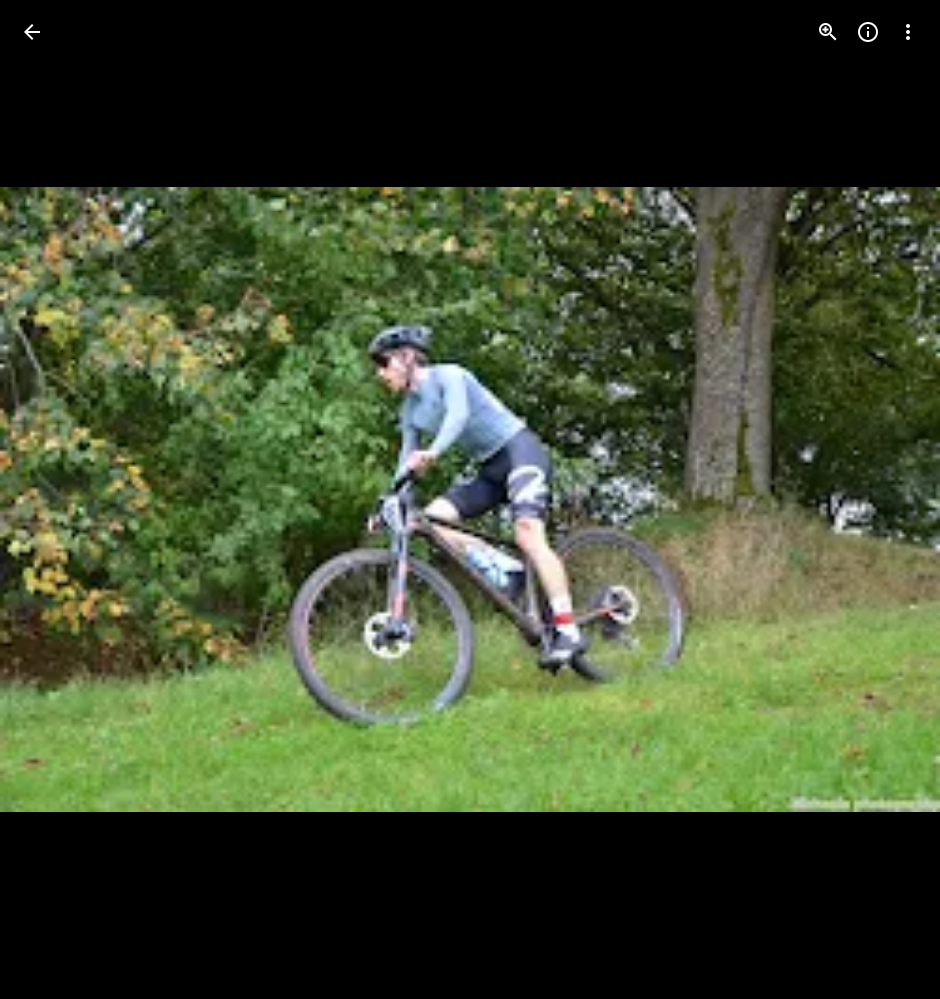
import math
import cairo

surface = cairo.ImageSurface(cairo.FORMAT_RGB24, 940, 999)
ctx = cairo.Context(surface)
options = cairo.FontOptions()
options.set_hint_metrics(cairo.HINT_METRICS_OFF)
options.set_hint_style(cairo.HINT_STYLE_NONE)
ctx.set_font_options(options)
ctx.set_miter_limit(4)


def set_color(code):
    ctx.set_source_rgb(*(v / 255 for v in bytes.fromhex(code[-6:])))


def draw_image(path, x, y, w, h):
    ctx.save()
    ctx.set_source_surface(cairo.ImageSurface.create_from_png(path), x, y)
    ctx.rectangle(x, y, w, h)
    ctx.fill()
    ctx.restore()


set_color("#000000")
ctx.paint()
draw_image("assets/img1.png", 24, 24, 16, 16)
draw_image("assets/img2.png", 819, 23, 18, 18)
draw_image("assets/img3.png", 858, 22, 20, 20)
draw_image("assets/img4.png", 906, 24, 4, 16)
draw_image("assets/img5.png", 0, 187, 940, 625)
surface.write_to_png("output.png")
